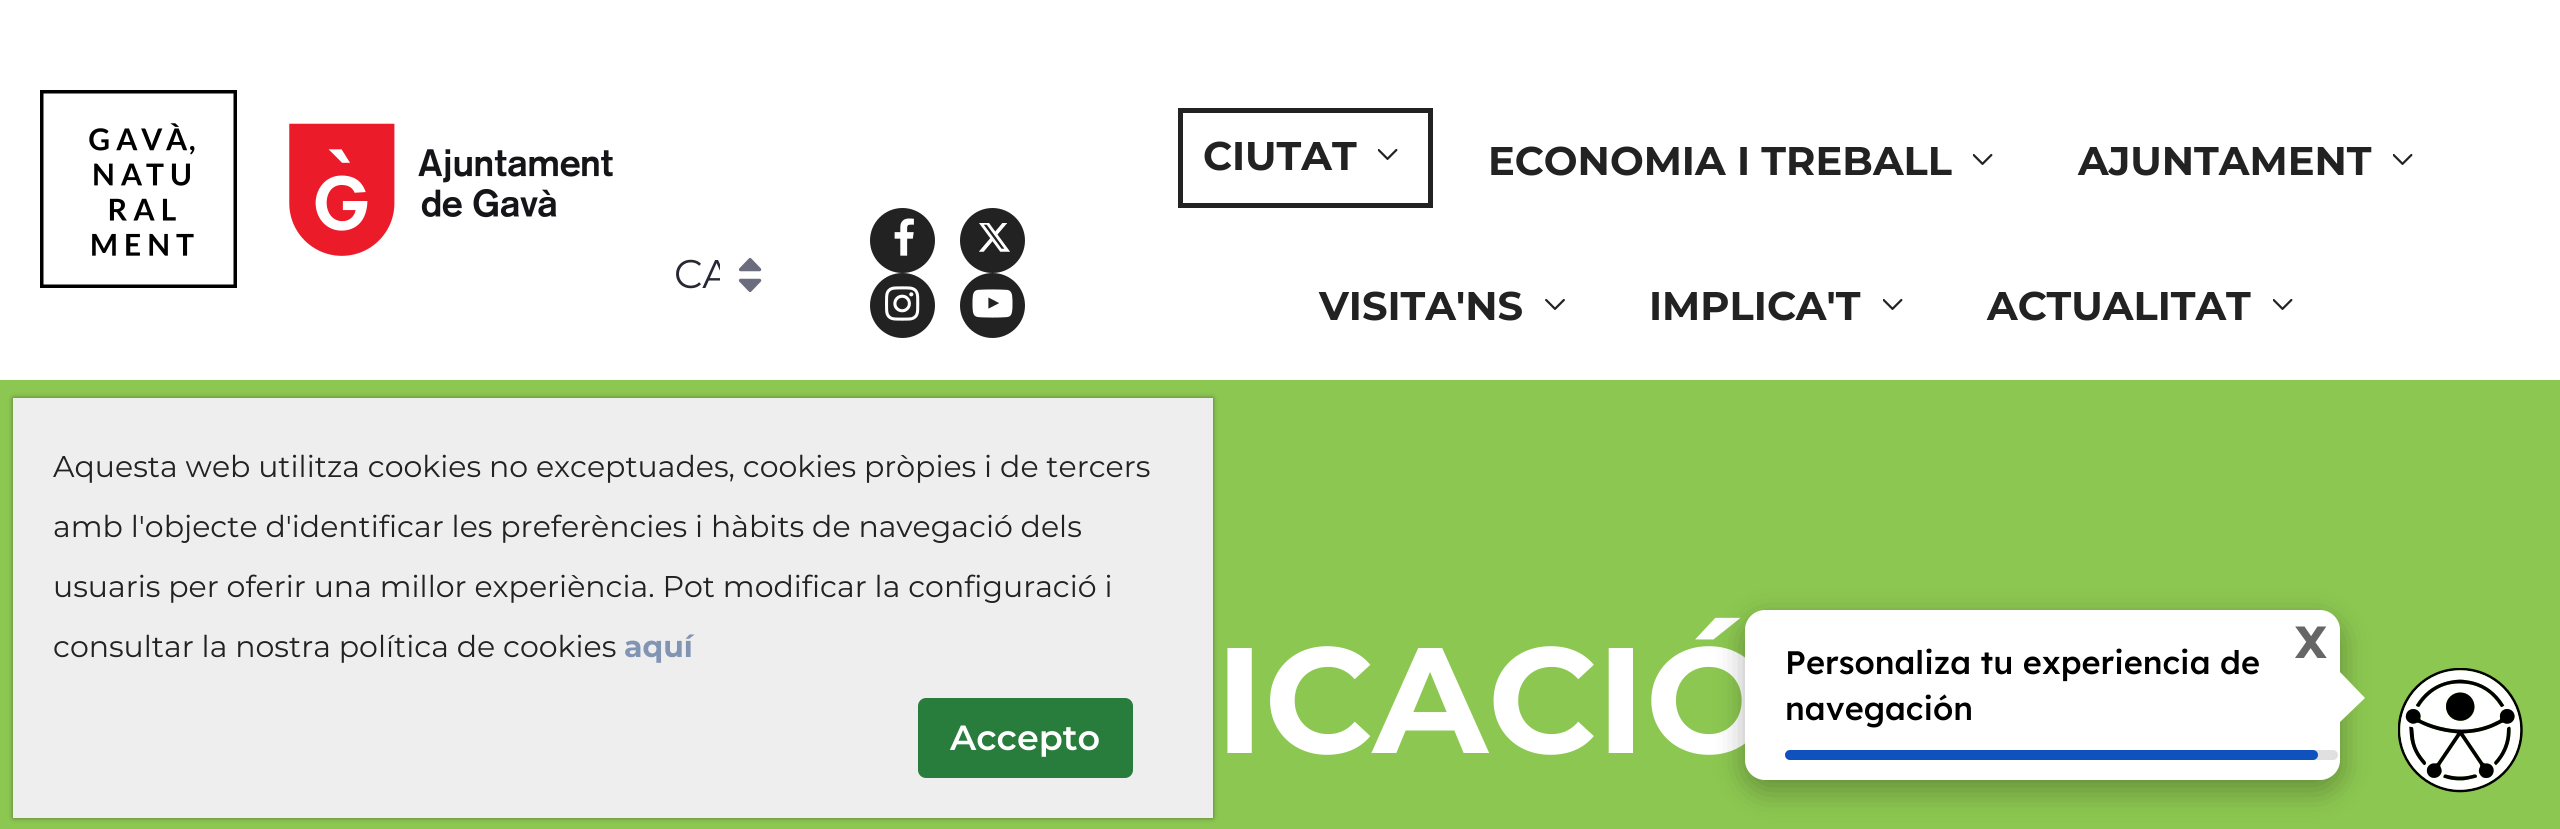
import math
import cairo

surface = cairo.ImageSurface(cairo.FORMAT_RGB24, 2560, 829)
ctx = cairo.Context(surface)
options = cairo.FontOptions()
options.set_hint_metrics(cairo.HINT_METRICS_OFF)
options.set_hint_style(cairo.HINT_STYLE_NONE)
ctx.set_font_options(options)
ctx.set_miter_limit(4)


def set_color(code):
    ctx.set_source_rgb(*(v / 255 for v in bytes.fromhex(code[-6:])))


def draw_text(x, y, s, family, size, color, bold=False, italic=False):
    ctx.select_font_face(family, cairo.FONT_SLANT_ITALIC if italic else cairo.FONT_SLANT_NORMAL, cairo.FONT_WEIGHT_BOLD if bold else cairo.FONT_WEIGHT_NORMAL)
    ctx.set_font_size(size)
    set_color(color)
    ctx.move_to(x, y)
    ctx.show_text(s)


def fill_rect(x, y, w, h, color):
    set_color(color)
    ctx.rectangle(x, y, w, h)
    ctx.fill()


def rounded_rect(x, y, w, h, r):
    ctx.new_sub_path()
    for i, (u, v) in enumerate([(x + w - r, y + h - r), (x + r, y + h - r), (x + r, y + r), (x + w - r, y + r)]):
        ctx.arc(u, v, r, i * math.pi / 2, (i + 1) * math.pi / 2)
    ctx.close_path()


def draw_shadow(x, y, w, h, r, blur, alpha):
    ctx.push_group_with_content(cairo.CONTENT_ALPHA)
    ctx.set_operator(cairo.OPERATOR_SOURCE)
    for i in range(15, -16, -2):
        e = blur * i / 6
        if min(w, h) + 2 * e > 0:
            ctx.set_source_rgba(0, 0, 0, alpha * math.erfc((i - 1) / 8.5) / 2)
            rounded_rect(x - e, y - e, w + 2 * e, h + 2 * e, max(0, min(r + e + blur * .6, min(w, h) / 2 + e)))
            ctx.fill()
    ctx.mask(ctx.pop_group())


def draw_image(path, x, y, w, h):
    ctx.save()
    ctx.set_source_surface(cairo.ImageSurface.create_from_png(path), x, y)
    ctx.rectangle(x, y, w, h)
    ctx.fill()
    ctx.restore()


set_color("#ffffff")
ctx.paint()
fill_rect(0, 380, 2560, 449, "#8cc751")
set_color("#222222")
draw_shadow(13, 398, 1200, 420, 0, 2.5, 0.5)
fill_rect(13, 398, 1200, 420, "#eeeeee")
draw_text(53, 477, "Aquesta web utilitza cookies no exceptuades, cookies pròpies i de tercers", "Montserrat", 30, "#222222")
draw_text(53, 537, "amb l'objecte d'identificar les preferències i hàbits de navegació dels", "Montserrat", 30, "#222222")
draw_text(53, 597, "usuaris per oferir una millor experiència. Pot modificar la configuració i", "Montserrat", 30, "#222222")
draw_text(53, 657, "consultar la nostra política de cookies", "Montserrat", 30, "#222222")
draw_text(624, 657, "aquí", "Montserrat", 30, "#8294b3", bold=True)
set_color("#287d3d")
rounded_rect(919.5, 699.5, 212, 77, 6.5)
ctx.fill_preserve()
ctx.set_line_width(3)
ctx.stroke()
draw_text(950, 750, "Accepto", "Montserrat SemiBold", 35, "#ffffff")
draw_image("assets/img1.png", 40, 90, 573, 198)
draw_image("assets/img2.png", 738, 257, 24, 35)
ctx.save()
ctx.rectangle(675, 245, 45, 60)
ctx.clip()
draw_text(674, 288, "CA", "Montserrat", 40, "#272833")
ctx.restore()
set_color("#222222")
ctx.new_path()
ctx.arc(902.5, 240.5, 32.5, 0, 2 * math.pi)
ctx.fill()
draw_image("assets/img3.png", 894, 218, 20, 38)
ctx.arc(992.5, 240.5, 32.5, 0, 2 * math.pi)
ctx.fill()
draw_image("assets/img4.png", 979, 223, 31, 29)
ctx.arc(902.5, 305.5, 32.5, 0, 2 * math.pi)
ctx.fill()
draw_image("assets/img5.png", 885, 286, 35, 35)
ctx.arc(992.5, 305.5, 32.5, 0, 2 * math.pi)
ctx.fill()
draw_image("assets/img6.png", 972, 289, 41, 29)
ctx.rectangle(1180.5, 110.5, 250, 95)
ctx.set_line_width(5)
ctx.stroke()
draw_text(1203, 170, "CIUTAT", "Montserrat", 40, "#222222", bold=True)
draw_image("assets/img7.png", 1378, 148, 20, 12)
draw_text(1488, 175, "ECONOMIA I TREBALL", "Montserrat", 40, "#222222", bold=True)
draw_image("assets/img7.png", 1973, 153, 20, 12)
draw_text(2078, 175, "AJUNTAMENT", "Montserrat", 40, "#222222", bold=True)
draw_image("assets/img7.png", 2393, 153, 20, 12)
draw_text(1319, 320, "VISITA'NS", "Montserrat", 40, "#222222", bold=True)
draw_image("assets/img8.png", 1545, 298, 20, 12)
draw_text(1649, 320, "IMPLICA'T", "Montserrat", 40, "#222222", bold=True)
draw_image("assets/img7.png", 1883, 298, 20, 12)
draw_text(1987, 320, "ACTUALITAT", "Montserrat", 40, "#222222", bold=True)
draw_image("assets/img7.png", 2273, 298, 20, 12)
draw_text(1215, 753, "ICACIÓ", "Montserrat", 150, "#ffffff", bold=True)
set_color("#000000")
draw_shadow(1745, 620, 595, 170, 20, 15, 0.3)
set_color("#ffffff")
rounded_rect(1745, 610, 595, 170, 20)
ctx.fill()
draw_text(2295, 658, "X", "Lexend", 45, "#666666", bold=True)
draw_text(1785, 674, "Personaliza tu experiencia de", "Lexend Medium", 32.5, "#000000")
draw_text(1785, 720, "navegación", "Lexend Medium", 32.5, "#000000")
set_color("#ffffff")
ctx.new_path()
ctx.move_to(2340, 722)
ctx.line_to(2340, 672)
ctx.line_to(2365, 698)
ctx.close_path()
ctx.fill()
set_color("#e0e0e0")
rounded_rect(1785, 750, 553, 10, 5)
ctx.fill()
set_color("#0f52bd")
rounded_rect(1785, 750, 533, 10, 5)
ctx.fill()
draw_image("assets/img9.png", 2398, 668, 125, 125)
surface.write_to_png("output.png")
